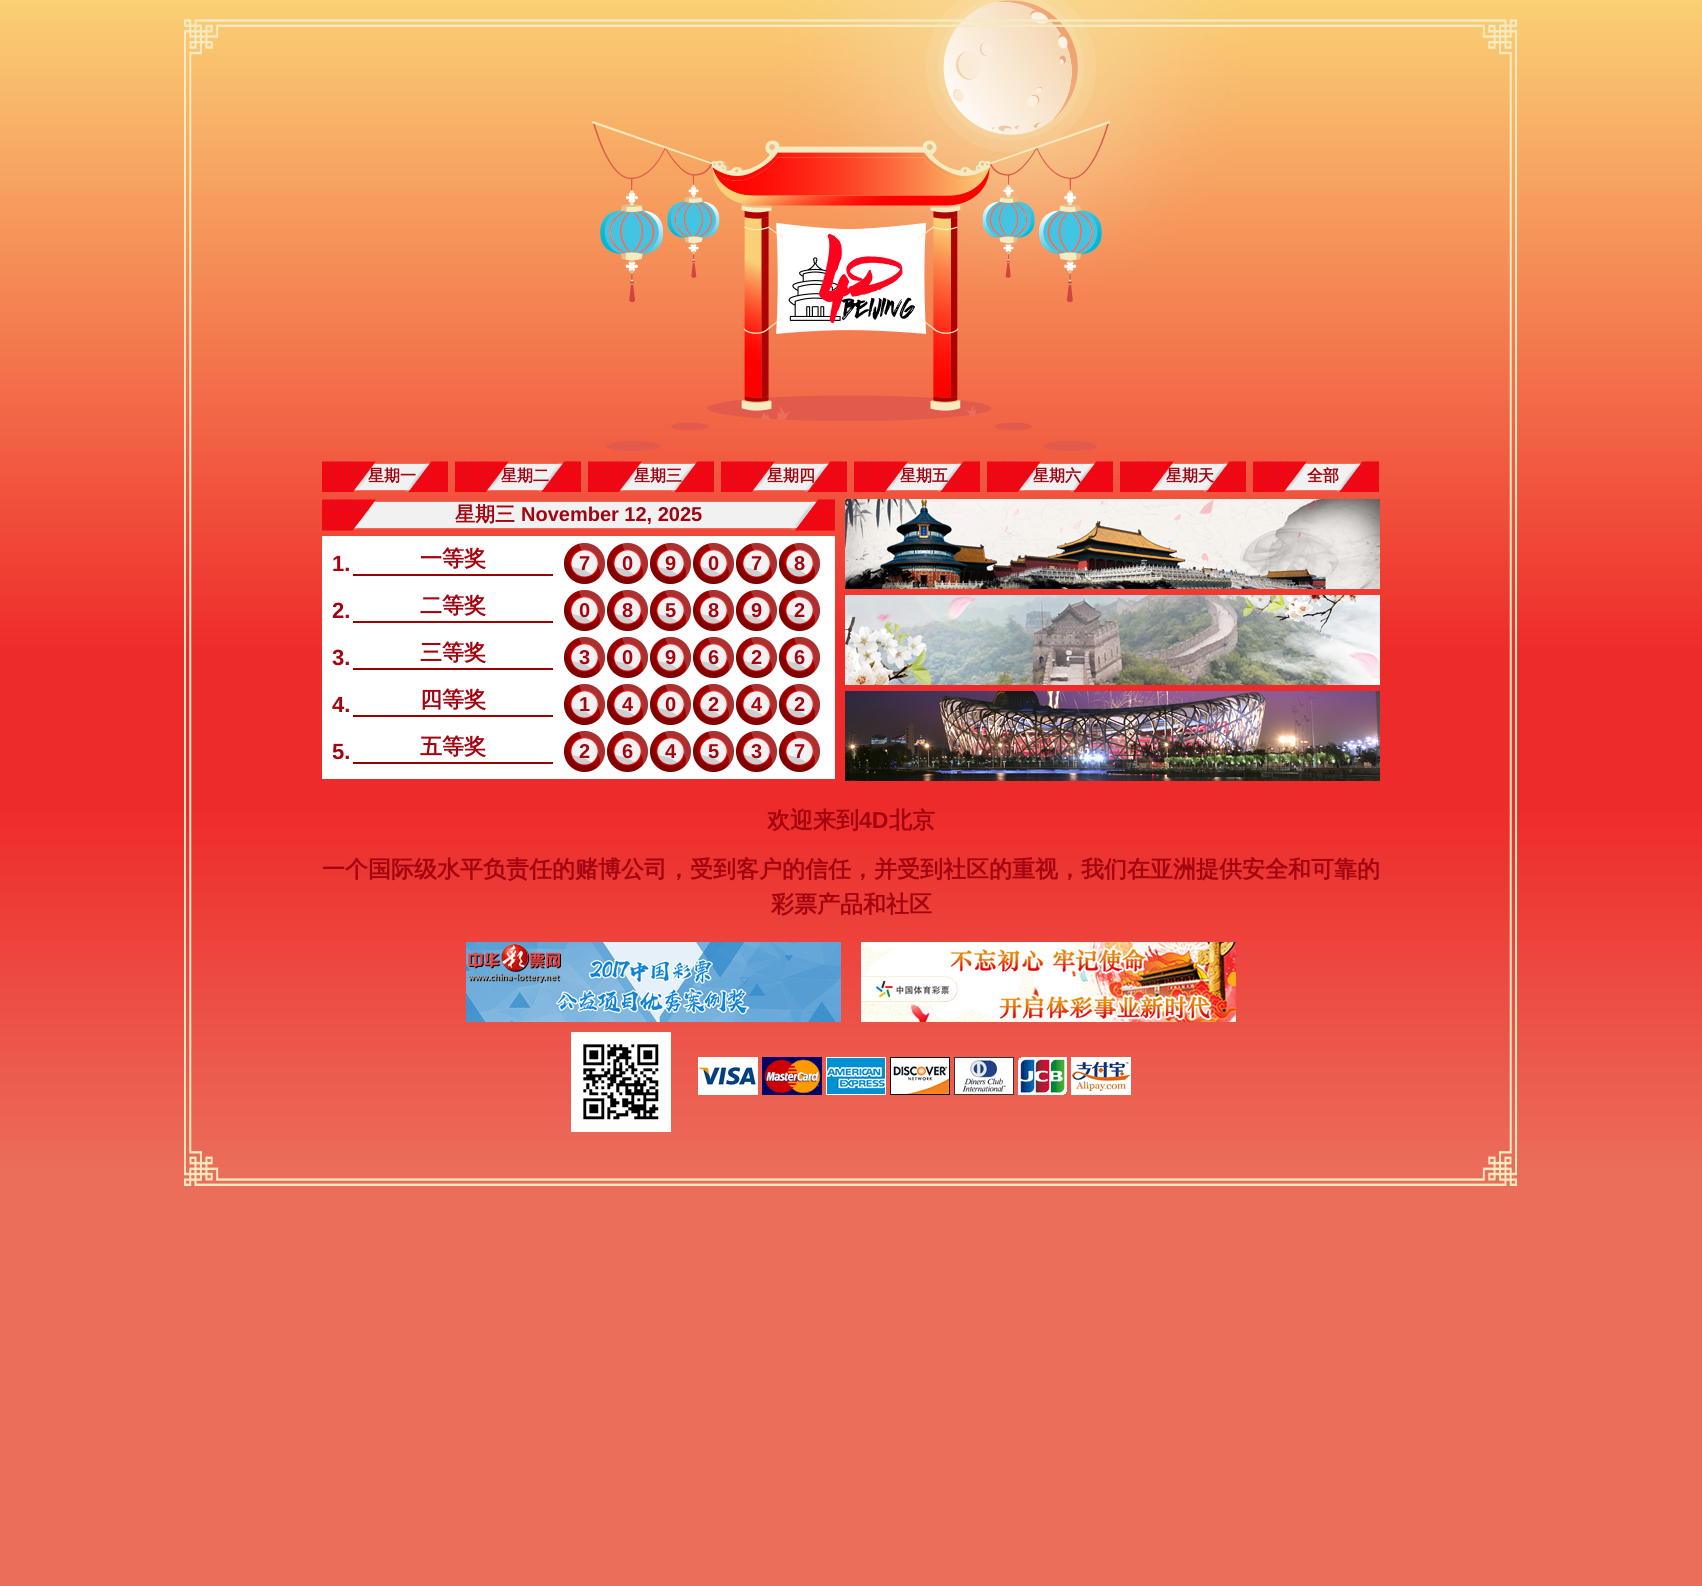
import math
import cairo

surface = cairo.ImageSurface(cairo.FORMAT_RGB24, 1702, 1586)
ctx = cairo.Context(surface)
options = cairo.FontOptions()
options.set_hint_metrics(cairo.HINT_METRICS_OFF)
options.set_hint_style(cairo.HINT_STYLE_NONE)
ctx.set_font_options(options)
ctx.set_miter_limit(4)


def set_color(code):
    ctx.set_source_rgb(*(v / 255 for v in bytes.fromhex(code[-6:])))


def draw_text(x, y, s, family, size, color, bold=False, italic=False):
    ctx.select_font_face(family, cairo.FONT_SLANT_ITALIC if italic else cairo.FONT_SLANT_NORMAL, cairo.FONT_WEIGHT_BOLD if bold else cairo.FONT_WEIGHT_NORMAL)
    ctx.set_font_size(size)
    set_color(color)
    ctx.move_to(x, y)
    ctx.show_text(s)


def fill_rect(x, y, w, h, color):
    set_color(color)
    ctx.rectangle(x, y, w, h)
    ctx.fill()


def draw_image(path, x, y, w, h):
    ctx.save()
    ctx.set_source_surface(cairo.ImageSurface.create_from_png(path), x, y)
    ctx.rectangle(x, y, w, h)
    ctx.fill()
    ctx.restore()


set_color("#ffffff")
ctx.paint()
gradient = cairo.LinearGradient(851, 0, 851, 1586)
gradient.add_color_stop_rgba(0, 0.98, 0.816, 0.459, 1)
gradient.add_color_stop_rgba(0.41, 0.933, 0.169, 0.169, 1)
gradient.add_color_stop_rgba(0.51, 0.933, 0.169, 0.169, 1)
gradient.add_color_stop_rgba(0.74, 0.922, 0.431, 0.353, 1)
gradient.add_color_stop_rgba(1, 0.922, 0.431, 0.353, 1)
ctx.set_source(gradient)
ctx.rectangle(0, 0, 1702, 1586)
ctx.fill()
draw_image("assets/img1.png", 184, 0, 1333, 461)
draw_image("assets/img2.png", 592, 121, 518, 330)
draw_image("assets/img3.png", 184, 461, 1333, 682)
draw_image("assets/img4.png", 322, 461, 126, 31)
draw_text(368, 481, "星期一", "WenQuanYi Zen Hei", 16, "#a30410", bold=True)
draw_image("assets/img4.png", 455, 461, 126, 31)
draw_text(501, 481, "星期二", "WenQuanYi Zen Hei", 16, "#a30410", bold=True)
draw_image("assets/img4.png", 588, 461, 126, 31)
draw_text(634, 481, "星期三", "WenQuanYi Zen Hei", 16, "#a30410", bold=True)
draw_image("assets/img4.png", 721, 461, 126, 31)
draw_text(767, 481, "星期四", "WenQuanYi Zen Hei", 16, "#a30410", bold=True)
draw_image("assets/img4.png", 854, 461, 126, 31)
draw_text(900, 481, "星期五", "WenQuanYi Zen Hei", 16, "#a30410", bold=True)
draw_image("assets/img4.png", 987, 461, 126, 31)
draw_text(1033, 481, "星期六", "WenQuanYi Zen Hei", 16, "#a30410", bold=True)
draw_image("assets/img4.png", 1120, 461, 126, 31)
draw_text(1166, 481, "星期天", "WenQuanYi Zen Hei", 16, "#a30410", bold=True)
draw_image("assets/img4.png", 1253, 461, 126, 31)
draw_text(1307, 481, "全部", "WenQuanYi Zen Hei", 16, "#a30410", bold=True)
draw_image("assets/img5.png", 322, 499, 513, 32)
draw_text(455, 521, "星期三", "WenQuanYi Zen Hei", 20, "#a30410", bold=True)
draw_text(521, 521, "November 12, 2025", "Liberation Sans", 20, "#a30410", bold=True)
fill_rect(322, 536, 513, 243, "#ffffff")
draw_text(332, 571, "1.", "Liberation Sans", 22, "#a30410", bold=True)
fill_rect(353, 574, 200, 2, "#990000")
draw_text(420, 566, "一等奖", "WenQuanYi Zen Hei", 22, "#a30410", bold=True)
draw_text(332, 618, "2.", "Liberation Sans", 22, "#a30410", bold=True)
fill_rect(353, 621, 200, 2, "#990000")
draw_text(420, 613, "二等奖", "WenQuanYi Zen Hei", 22, "#a30410", bold=True)
draw_text(332, 665, "3.", "Liberation Sans", 22, "#a30410", bold=True)
fill_rect(353, 668, 200, 2, "#990000")
draw_text(420, 660, "三等奖", "WenQuanYi Zen Hei", 22, "#a30410", bold=True)
draw_text(332, 712, "4.", "Liberation Sans", 22, "#a30410", bold=True)
fill_rect(353, 715, 200, 2, "#990000")
draw_text(420, 707, "四等奖", "WenQuanYi Zen Hei", 22, "#a30410", bold=True)
draw_text(332, 759, "5.", "Liberation Sans", 22, "#a30410", bold=True)
fill_rect(353, 762, 200, 2, "#990000")
draw_text(420, 754, "五等奖", "WenQuanYi Zen Hei", 22, "#a30410", bold=True)
draw_image("assets/img6.png", 564, 543, 41, 41)
draw_text(579, 570, "7", "Liberation Sans", 20, "#a30410", bold=True)
draw_image("assets/img6.png", 607, 543, 41, 41)
draw_text(622, 570, "0", "Liberation Sans", 20, "#a30410", bold=True)
draw_image("assets/img6.png", 650, 543, 41, 41)
draw_text(665, 570, "9", "Liberation Sans", 20, "#a30410", bold=True)
draw_image("assets/img6.png", 693, 543, 41, 41)
draw_text(708, 570, "0", "Liberation Sans", 20, "#a30410", bold=True)
draw_image("assets/img6.png", 736, 543, 41, 41)
draw_text(751, 570, "7", "Liberation Sans", 20, "#a30410", bold=True)
draw_image("assets/img6.png", 779, 543, 41, 41)
draw_text(794, 570, "8", "Liberation Sans", 20, "#a30410", bold=True)
draw_image("assets/img6.png", 564, 590, 41, 41)
draw_text(579, 617, "0", "Liberation Sans", 20, "#a30410", bold=True)
draw_image("assets/img6.png", 607, 590, 41, 41)
draw_text(622, 617, "8", "Liberation Sans", 20, "#a30410", bold=True)
draw_image("assets/img6.png", 650, 590, 41, 41)
draw_text(665, 617, "5", "Liberation Sans", 20, "#a30410", bold=True)
draw_image("assets/img6.png", 693, 590, 41, 41)
draw_text(708, 617, "8", "Liberation Sans", 20, "#a30410", bold=True)
draw_image("assets/img6.png", 736, 590, 41, 41)
draw_text(751, 617, "9", "Liberation Sans", 20, "#a30410", bold=True)
draw_image("assets/img6.png", 779, 590, 41, 41)
draw_text(794, 617, "2", "Liberation Sans", 20, "#a30410", bold=True)
draw_image("assets/img6.png", 564, 637, 41, 41)
draw_text(579, 664, "3", "Liberation Sans", 20, "#a30410", bold=True)
draw_image("assets/img6.png", 607, 637, 41, 41)
draw_text(622, 664, "0", "Liberation Sans", 20, "#a30410", bold=True)
draw_image("assets/img6.png", 650, 637, 41, 41)
draw_text(665, 664, "9", "Liberation Sans", 20, "#a30410", bold=True)
draw_image("assets/img6.png", 693, 637, 41, 41)
draw_text(708, 664, "6", "Liberation Sans", 20, "#a30410", bold=True)
draw_image("assets/img6.png", 736, 637, 41, 41)
draw_text(751, 664, "2", "Liberation Sans", 20, "#a30410", bold=True)
draw_image("assets/img6.png", 779, 637, 41, 41)
draw_text(794, 664, "6", "Liberation Sans", 20, "#a30410", bold=True)
draw_image("assets/img6.png", 564, 684, 41, 41)
draw_text(579, 711, "1", "Liberation Sans", 20, "#a30410", bold=True)
draw_image("assets/img6.png", 607, 684, 41, 41)
draw_text(622, 711, "4", "Liberation Sans", 20, "#a30410", bold=True)
draw_image("assets/img6.png", 650, 684, 41, 41)
draw_text(665, 711, "0", "Liberation Sans", 20, "#a30410", bold=True)
draw_image("assets/img6.png", 693, 684, 41, 41)
draw_text(708, 711, "2", "Liberation Sans", 20, "#a30410", bold=True)
draw_image("assets/img6.png", 736, 684, 41, 41)
draw_text(751, 711, "4", "Liberation Sans", 20, "#a30410", bold=True)
draw_image("assets/img6.png", 779, 684, 41, 41)
draw_text(794, 711, "2", "Liberation Sans", 20, "#a30410", bold=True)
draw_image("assets/img6.png", 564, 731, 41, 41)
draw_text(579, 758, "2", "Liberation Sans", 20, "#a30410", bold=True)
draw_image("assets/img6.png", 607, 731, 41, 41)
draw_text(622, 758, "6", "Liberation Sans", 20, "#a30410", bold=True)
draw_image("assets/img6.png", 650, 731, 41, 41)
draw_text(665, 758, "4", "Liberation Sans", 20, "#a30410", bold=True)
draw_image("assets/img6.png", 693, 731, 41, 41)
draw_text(708, 758, "5", "Liberation Sans", 20, "#a30410", bold=True)
draw_image("assets/img6.png", 736, 731, 41, 41)
draw_text(751, 758, "3", "Liberation Sans", 20, "#a30410", bold=True)
draw_image("assets/img6.png", 779, 731, 41, 41)
draw_text(794, 758, "7", "Liberation Sans", 20, "#a30410", bold=True)
draw_image("assets/img7.png", 845, 499, 535, 90)
draw_image("assets/img8.png", 845, 595, 535, 90)
draw_image("assets/img9.png", 845, 691, 535, 90)
draw_text(767, 828, "欢迎来到", "WenQuanYi Zen Hei", 23, "#a30410", bold=True)
draw_text(859, 828, "4D", "Liberation Sans", 23, "#a30410", bold=True)
draw_text(889, 828, "北京", "WenQuanYi Zen Hei", 23, "#a30410", bold=True)
draw_text(322, 877, "一个国际级水平负责任的赌博公司，受到客户的信任，并受到社区的重视，我们在亚洲提供安全和可靠的", "WenQuanYi Zen Hei", 23, "#a30410", bold=True)
draw_text(771, 912, "彩票产品和社区", "WenQuanYi Zen Hei", 23, "#a30410", bold=True)
draw_image("assets/img10.png", 466, 942, 375, 80)
draw_image("assets/img11.png", 861, 942, 375, 80)
draw_image("assets/img12.png", 571, 1032, 100, 100)
draw_image("assets/img13.png", 698, 1057, 433, 38)
draw_image("assets/img14.png", 184, 1143, 1333, 43)
surface.write_to_png("output.png")
